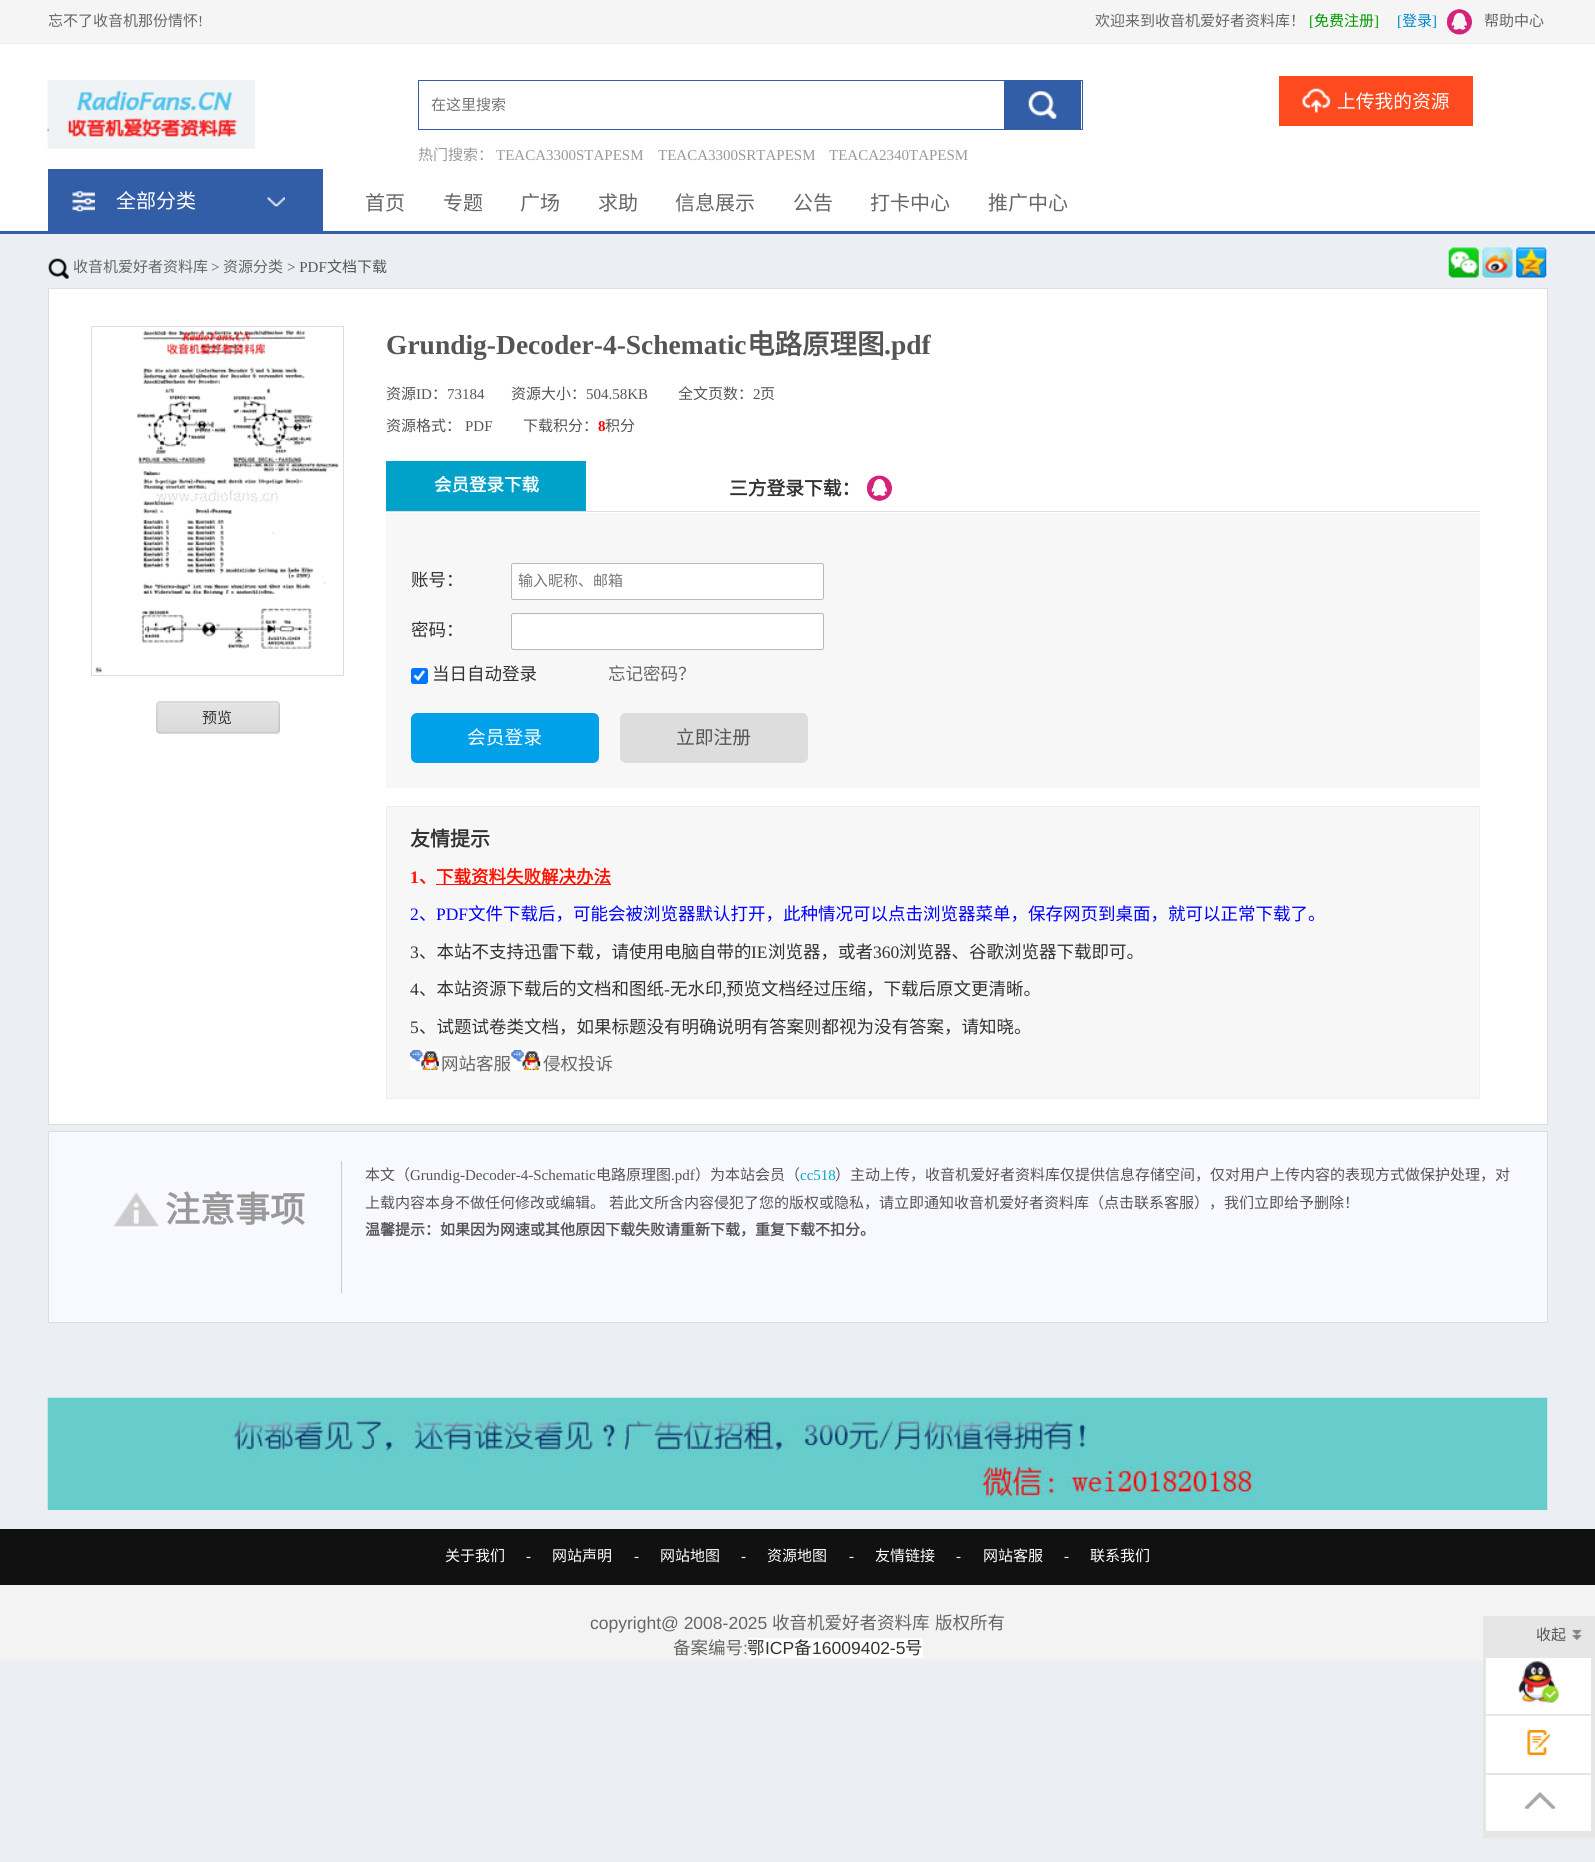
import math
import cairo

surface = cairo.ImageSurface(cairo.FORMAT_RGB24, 1595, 1862)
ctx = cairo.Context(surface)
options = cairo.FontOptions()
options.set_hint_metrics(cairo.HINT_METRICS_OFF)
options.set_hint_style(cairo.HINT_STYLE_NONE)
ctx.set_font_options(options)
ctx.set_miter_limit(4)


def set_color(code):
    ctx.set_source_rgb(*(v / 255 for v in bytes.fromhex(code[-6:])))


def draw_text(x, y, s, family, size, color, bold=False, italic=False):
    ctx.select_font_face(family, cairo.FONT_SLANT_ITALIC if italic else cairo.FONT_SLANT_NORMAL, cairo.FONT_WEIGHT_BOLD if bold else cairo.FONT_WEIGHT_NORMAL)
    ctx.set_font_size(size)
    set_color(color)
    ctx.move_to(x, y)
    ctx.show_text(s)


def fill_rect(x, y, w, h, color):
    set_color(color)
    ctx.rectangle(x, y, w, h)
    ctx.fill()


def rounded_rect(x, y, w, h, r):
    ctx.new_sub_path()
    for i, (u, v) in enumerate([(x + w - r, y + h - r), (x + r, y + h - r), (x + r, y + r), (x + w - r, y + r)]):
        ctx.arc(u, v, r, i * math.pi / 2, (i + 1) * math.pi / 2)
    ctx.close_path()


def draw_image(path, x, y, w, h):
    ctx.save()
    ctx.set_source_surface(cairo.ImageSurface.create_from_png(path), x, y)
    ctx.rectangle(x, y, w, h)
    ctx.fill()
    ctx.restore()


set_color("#ebeef2")
ctx.paint()
fill_rect(0, 44, 1595, 187, "#ffffff")
fill_rect(0, 0, 1595, 43, "#f5f5f5")
fill_rect(0, 43, 1595, 1, "#eeeeee")
draw_text(48, 26, "忘不了收音机那份情怀", "Noto Sans CJK SC", 15, "#666666")
draw_text(198, 26, "!", "Liberation Serif", 15, "#666666")
draw_text(1095, 26, "欢迎来到收音机爱好者资料库！", "Noto Sans CJK SC", 15, "#666666")
draw_text(1309, 26, "[", "Liberation Serif", 15, "#009900")
draw_text(1314, 26, "免费注册", "Noto Sans CJK SC", 15, "#009900")
draw_text(1374, 26, "]", "Liberation Serif", 15, "#009900")
draw_text(1397, 26, "[", "Liberation Serif", 15, "#0088cc")
draw_text(1402, 26, "登录", "Noto Sans CJK SC", 15, "#0088cc")
draw_text(1432, 26, "]", "Liberation Serif", 15, "#0088cc")
draw_image("assets/img1.png", 1447, 9, 25, 26)
draw_text(1484, 26, "帮助中心", "Noto Sans CJK SC", 15, "#666666")
draw_image("assets/img2.png", 47, 80, 208, 69)
ctx.rectangle(418.5, 80.5, 664, 49)
set_color("#325da7")
ctx.set_line_width(1)
ctx.stroke()
draw_text(431, 110, "在这里搜索", "Noto Sans CJK SC", 15, "#757575")
fill_rect(1004, 81, 77, 48, "#325da7")
draw_image("assets/img3.png", 1028, 91, 29, 28)
draw_text(418, 160, "热门搜索：", "Noto Sans CJK SC", 15, "#999999")
draw_text(496, 160, "TEACA3300STAPESM", "Liberation Serif", 15, "#999999")
draw_text(658, 160, "TEACA3300SRTAPESM", "Liberation Serif", 15, "#999999")
draw_text(829, 160, "TEACA2340TAPESM", "Liberation Serif", 15, "#999999")
fill_rect(1279, 76, 194, 50, "#ff491f")
draw_image("assets/img4.png", 1302, 88, 29, 25)
draw_text(1337, 108, "上传我的资源", "Noto Sans CJK SC", 18.75, "#ffffff")
fill_rect(0, 231, 1595, 3, "#325da7")
fill_rect(48, 169, 275, 62, "#325da7")
draw_image("assets/img5.png", 72, 191, 23, 21)
draw_text(116, 208, "全部分类", "Noto Sans CJK SC", 20, "#ffffff")
draw_image("assets/img6.png", 267, 197, 18, 10)
draw_text(365, 210, "首页", "Noto Sans CJK SC", 20, "#666666")
draw_text(443, 210, "专题", "Noto Sans CJK SC", 20, "#666666")
draw_text(520, 210, "广场", "Noto Sans CJK SC", 20, "#666666")
draw_text(598, 210, "求助", "Noto Sans CJK SC", 20, "#666666")
draw_text(675, 210, "信息展示", "Noto Sans CJK SC", 20, "#666666")
draw_text(793, 210, "公告", "Noto Sans CJK SC", 20, "#666666")
draw_text(870, 210, "打卡中心", "Noto Sans CJK SC", 20, "#666666")
draw_text(988, 210, "推广中心", "Noto Sans CJK SC", 20, "#666666")
draw_image("assets/img7.png", 48, 258, 21, 21)
draw_text(73, 272, "收音机爱好者资料库", "Noto Sans CJK SC", 15, "#666666")
draw_text(211, 272, ">", "Liberation Serif", 15, "#555555")
draw_text(223, 272, "资源分类", "Noto Sans CJK SC", 15, "#666666")
draw_text(287, 272, "> PDF", "Liberation Serif", 15, "#555555")
draw_text(327, 272, "文档下载", "Noto Sans CJK SC", 15, "#555555")
draw_image("assets/img8.png", 1448, 247, 31, 31)
draw_image("assets/img9.png", 1482, 247, 31, 31)
draw_image("assets/img10.png", 1516, 247, 31, 31)
set_color("#ffffff")
ctx.rectangle(48.5, 288.5, 1499, 836)
ctx.fill_preserve()
set_color("#dddddd")
ctx.stroke()
ctx.rectangle(91.5, 326.5, 252, 349)
ctx.stroke()
draw_image("assets/img11.png", 95, 330, 244, 343)
draw_image("assets/img12.png", 156, 701, 124, 33)
draw_text(202, 723, "预览", "Noto Sans CJK SC", 15, "#333333")
draw_text(386, 354, "Grundig-Decoder-4-Schematic", "Liberation Serif", 27.5, "#555555", bold=True)
draw_text(747, 354, "电路原理图", "Noto Sans CJK SC", 27.5, "#555555", bold=True)
draw_text(884, 354, ".pdf", "Liberation Serif", 27.5, "#555555", bold=True)
draw_text(386, 399, "资源", "Noto Sans CJK SC", 15, "#555555")
draw_text(416, 399, "ID", "Liberation Serif", 15, "#555555")
draw_text(432, 399, "：", "Noto Sans CJK SC", 15, "#555555")
draw_text(447, 399, "73184", "Liberation Serif", 15, "#555555")
draw_text(511, 399, "资源大小：", "Noto Sans CJK SC", 15, "#555555")
draw_text(586, 399, "504.58KB", "Liberation Serif", 15, "#555555")
draw_text(678, 399, "全文页数：", "Noto Sans CJK SC", 15, "#555555")
draw_text(753, 399, "2", "Liberation Serif", 15, "#555555")
draw_text(760, 399, "页", "Noto Sans CJK SC", 15, "#555555")
draw_text(386, 431, "资源格式：", "Noto Sans CJK SC", 15, "#555555")
draw_text(465, 431, "PDF", "Liberation Serif", 15, "#555555")
draw_text(523, 431, "下载积分：", "Noto Sans CJK SC", 15, "#555555")
draw_text(598, 431, "8", "Liberation Serif", 15, "#ff0000", bold=True)
draw_text(605, 431, "积分", "Noto Sans CJK SC", 15, "#555555")
fill_rect(386, 513, 1094, 275, "#f7f7f7")
fill_rect(386, 511, 1094, 1, "#dddddd")
fill_rect(386, 461, 200, 50, "#00a2ca")
draw_text(434, 491, "会员登录下载", "Noto Sans CJK SC", 17.5, "#ffffff", bold=True)
draw_text(729, 495, "三方登录下载：", "Noto Sans CJK SC", 18.75, "#333333", bold=True)
draw_image("assets/img13.png", 867, 475, 25, 26)
draw_text(411, 586, "账号：", "Noto Sans CJK SC", 17.5, "#333333")
set_color("#ffffff")
rounded_rect(511.5, 563.5, 312, 36, 2)
ctx.fill_preserve()
set_color("#acbcc7")
ctx.stroke()
draw_text(518, 586, "输入昵称、邮箱", "Noto Sans CJK SC", 15, "#757575")
draw_text(411, 636, "密码：", "Noto Sans CJK SC", 17.5, "#333333")
set_color("#ffffff")
rounded_rect(511.5, 613.5, 312, 36, 2)
ctx.fill_preserve()
set_color("#acbcc7")
ctx.stroke()
set_color("#0075ff")
rounded_rect(411, 668, 17, 16, 2.5)
ctx.fill()
ctx.new_path()
ctx.move_to(414.5, 675.5)
ctx.line_to(418, 679)
ctx.line_to(424, 671)
set_color("#ffffff")
ctx.set_line_width(2.6)
ctx.stroke()
draw_text(432, 680, "当日自动登录", "Noto Sans CJK SC", 17.5, "#333333")
draw_text(608, 680, "忘记密码？", "Noto Sans CJK SC", 17.5, "#666666")
set_color("#00a1e9")
rounded_rect(411, 713, 188, 50, 6)
ctx.fill()
draw_text(467, 744, "会员登录", "Noto Sans CJK SC", 18.75, "#ffffff")
set_color("#dddddd")
rounded_rect(620, 713, 188, 50, 6)
ctx.fill()
draw_text(676, 744, "立即注册", "Noto Sans CJK SC", 18.75, "#555555")
set_color("#f7f7f7")
ctx.rectangle(386.5, 806.5, 1093, 292)
ctx.fill_preserve()
set_color("#eeeeee")
ctx.set_line_width(1)
ctx.stroke()
draw_text(410, 846, "友情提示", "Noto Sans CJK SC", 20, "#333333", bold=True)
draw_text(410, 883, "1", "Liberation Serif", 17.5, "#ff1100", bold=True)
draw_text(419, 883, "、", "Noto Sans CJK SC", 17.5, "#ff1100", bold=True)
fill_rect(436, 884, 175, 1, "#ff1100")
draw_text(436, 883, "下载资料失败解决办法", "Noto Sans CJK SC", 17.5, "#ff1100", bold=True)
draw_text(410, 920, "2", "Liberation Serif", 17.5, "#0000ff")
draw_text(419, 920, "、", "Noto Sans CJK SC", 17.5, "#0000ff")
draw_text(436, 920, "PDF", "Liberation Serif", 17.5, "#0000ff")
draw_text(468, 920, "文件下载后，可能会被浏览器默认打开，此种情况可以点击浏览器菜单，保存网页到桌面，就可以正常下载了。", "Noto Sans CJK SC", 17.5, "#0000ff")
draw_text(410, 958, "3", "Liberation Serif", 17.5, "#333333")
draw_text(419, 958, "、本站不支持迅雷下载，请使用电脑自带的", "Noto Sans CJK SC", 17.5, "#333333")
draw_text(751, 958, "IE", "Liberation Serif", 17.5, "#333333")
draw_text(768, 958, "浏览器，或者", "Noto Sans CJK SC", 17.5, "#333333")
draw_text(873, 958, "360", "Liberation Serif", 17.5, "#333333")
draw_text(899, 958, "浏览器、谷歌浏览器下载即可。", "Noto Sans CJK SC", 17.5, "#333333")
draw_text(410, 995, "4", "Liberation Serif", 17.5, "#333333")
draw_text(419, 995, "、本站资源下载后的文档和图纸", "Noto Sans CJK SC", 17.5, "#333333")
draw_text(664, 995, "-", "Liberation Serif", 17.5, "#333333")
draw_text(670, 995, "无水印", "Noto Sans CJK SC", 17.5, "#333333")
draw_text(726, 995, "预览文档经过压缩，下载后原文更清晰。", "Noto Sans CJK SC", 17.5, "#333333")
draw_text(722, 995, ",", "Liberation Serif", 17.5, "#333333")
draw_text(410, 1033, "5", "Liberation Serif", 17.5, "#333333")
draw_text(419, 1033, "、试题试卷类文档，如果标题没有明确说明有答案则都视为没有答案，请知晓。", "Noto Sans CJK SC", 17.5, "#333333")
draw_image("assets/img14.png", 410, 1050, 31, 20)
draw_text(441, 1070, "网站客服", "Noto Sans CJK SC", 17.5, "#666666")
draw_image("assets/img15.png", 511, 1050, 32, 20)
draw_text(543, 1070, "侵权投诉", "Noto Sans CJK SC", 17.5, "#666666")
set_color("#f8f8ff")
ctx.rectangle(48.5, 1131.5, 1499, 191)
ctx.fill_preserve()
set_color("#dddddd")
ctx.stroke()
fill_rect(341, 1161, 1, 132, "#cccccc")
draw_image("assets/img16.png", 113, 1192, 46, 37)
draw_text(165, 1222, "注意事项", "Noto Sans CJK SC", 35, "#999999", bold=True)
draw_text(365, 1180, "本文（", "Noto Sans CJK SC", 15, "#555555")
draw_text(410, 1180, "Grundig-Decoder-4-Schematic", "Liberation Serif", 15, "#555555")
draw_text(596, 1180, "电路原理图", "Noto Sans CJK SC", 15, "#555555")
draw_text(671, 1180, ".pdf", "Liberation Serif", 15, "#555555")
draw_text(695, 1180, "）为本站会员（", "Noto Sans CJK SC", 15, "#555555")
draw_text(800, 1180, "cc518", "Liberation Serif", 15, "#01a7c8")
draw_text(835, 1180, "）主动上传，收音机爱好者资料库仅提供信息存储空间，仅对用户上传内容的表现方式做保护处理，对", "Noto Sans CJK SC", 15, "#555555")
draw_text(365, 1208, "上载内容本身不做任何修改或编辑。", "Noto Sans CJK SC", 15, "#555555")
draw_text(609, 1208, "若此文所含内容侵犯了您的版权或隐私，请立即通知收音机爱好者资料库（点击联系客服），我们立即给予删除！", "Noto Sans CJK SC", 15, "#555555")
draw_text(365, 1235, "温馨提示：如果因为网速或其他原因下载失败请重新下载，重复下载不扣分。", "Noto Sans CJK SC", 15, "#555555", bold=True)
draw_image("assets/img17.png", 47, 1397, 1501, 113)
fill_rect(0, 1529, 1595, 56, "#111111")
draw_text(445, 1561, "关于我们", "Noto Sans CJK SC", 15, "#ffffff")
draw_text(526, 1561, "-", "Liberation Serif", 15, "#ffffff")
draw_text(552, 1561, "网站声明", "Noto Sans CJK SC", 15, "#ffffff")
draw_text(634, 1561, "-", "Liberation Serif", 15, "#ffffff")
draw_text(660, 1561, "网站地图", "Noto Sans CJK SC", 15, "#ffffff")
draw_text(741, 1561, "-", "Liberation Serif", 15, "#ffffff")
draw_text(767, 1561, "资源地图", "Noto Sans CJK SC", 15, "#ffffff")
draw_text(849, 1561, "-", "Liberation Serif", 15, "#ffffff")
draw_text(875, 1561, "友情链接", "Noto Sans CJK SC", 15, "#ffffff")
draw_text(956, 1561, "-", "Liberation Serif", 15, "#ffffff")
draw_text(983, 1561, "网站客服", "Noto Sans CJK SC", 15, "#ffffff")
draw_text(1064, 1561, "-", "Liberation Serif", 15, "#ffffff")
draw_text(1090, 1561, "联系我们", "Noto Sans CJK SC", 15, "#ffffff")
fill_rect(0, 1585, 1595, 75, "#f3f3f3")
draw_text(590, 1629, "copyright@ 2008-2025", "Liberation Sans", 17.5, "#666666")
draw_text(772, 1629, "收音机爱好者资料库", "Noto Sans CJK SC", 17.5, "#666666")
draw_text(935, 1629, "版权所有", "Noto Sans CJK SC", 17.5, "#666666")
draw_text(673, 1654, "备案编号", "Noto Sans CJK SC", 17.5, "#666666")
draw_text(743, 1654, ":", "Liberation Sans", 17.5, "#666666")
fill_rect(748, 1638, 175, 20, "#ffffff")
draw_text(747, 1654, "鄂", "Noto Sans CJK SC", 17.5, "#333333")
draw_text(765, 1654, "ICP", "Liberation Sans", 17.5, "#333333")
draw_text(794, 1654, "备", "Noto Sans CJK SC", 17.5, "#333333")
draw_text(812, 1654, "16009402-5", "Liberation Sans", 17.5, "#333333")
draw_text(905, 1654, "号", "Noto Sans CJK SC", 17.5, "#333333")
fill_rect(1483, 1616, 112, 38, "#e6e6e6")
draw_text(1536, 1640, "收起", "Noto Sans CJK SC", 15, "#555555")
draw_image("assets/img18.png", 1572, 1629, 10, 11)
ctx.rectangle(1485, 1656, 108, 180)
set_color("#e6e6e6")
ctx.set_line_width(4)
ctx.stroke()
fill_rect(1486, 1658, 105, 56, "#ffffff")
draw_image("assets/img19.png", 1518, 1661, 41, 42)
fill_rect(1486, 1714, 105, 2, "#e6e6e6")
fill_rect(1486, 1716, 105, 57, "#ffffff")
draw_image("assets/img20.png", 1527, 1729, 24, 27)
fill_rect(1486, 1773, 105, 2, "#e6e6e6")
fill_rect(1486, 1775, 105, 56, "#ffffff")
draw_image("assets/img21.png", 1524, 1792, 32, 17)
fill_rect(1486, 1831, 105, 3, "#e6e6e6")
surface.write_to_png("output.png")
